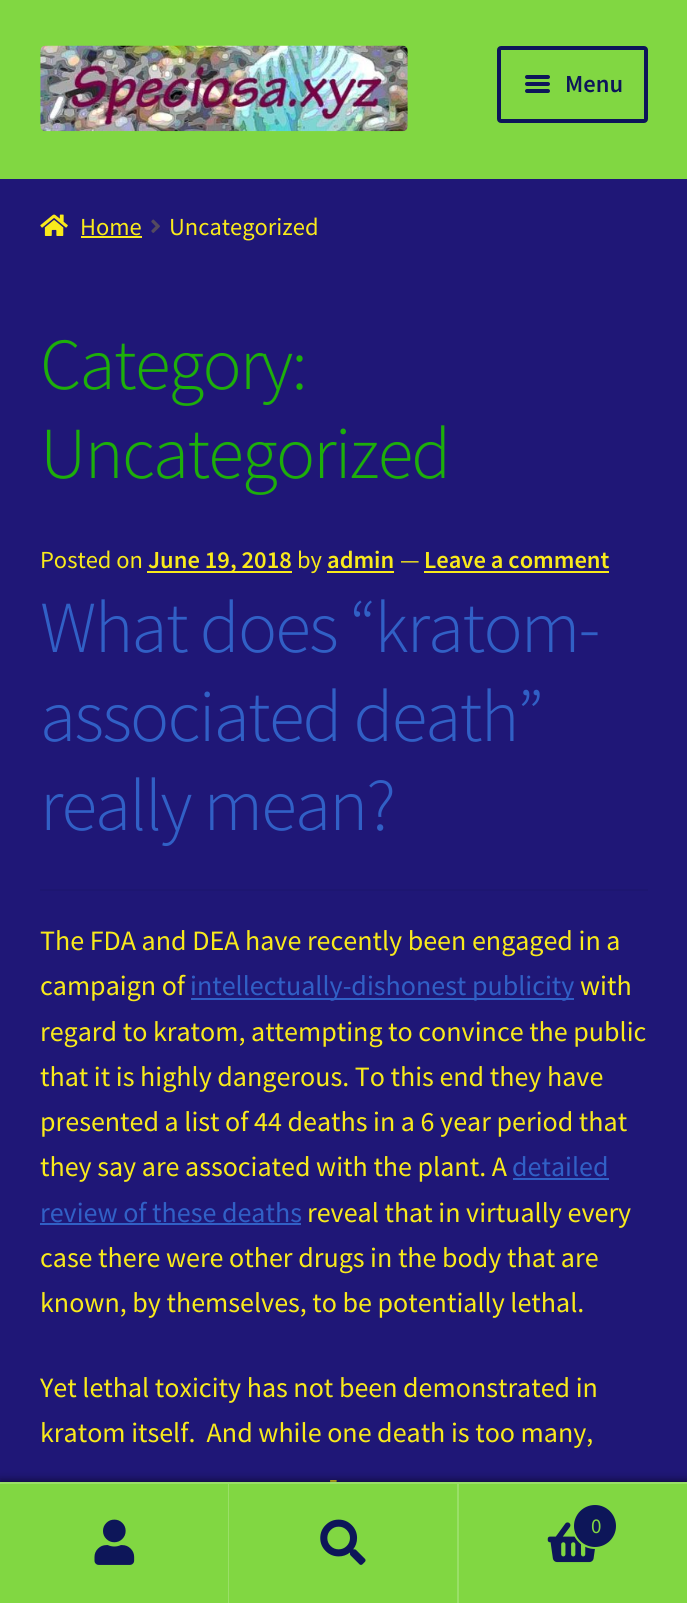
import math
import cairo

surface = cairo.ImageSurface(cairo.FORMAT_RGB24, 687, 1603)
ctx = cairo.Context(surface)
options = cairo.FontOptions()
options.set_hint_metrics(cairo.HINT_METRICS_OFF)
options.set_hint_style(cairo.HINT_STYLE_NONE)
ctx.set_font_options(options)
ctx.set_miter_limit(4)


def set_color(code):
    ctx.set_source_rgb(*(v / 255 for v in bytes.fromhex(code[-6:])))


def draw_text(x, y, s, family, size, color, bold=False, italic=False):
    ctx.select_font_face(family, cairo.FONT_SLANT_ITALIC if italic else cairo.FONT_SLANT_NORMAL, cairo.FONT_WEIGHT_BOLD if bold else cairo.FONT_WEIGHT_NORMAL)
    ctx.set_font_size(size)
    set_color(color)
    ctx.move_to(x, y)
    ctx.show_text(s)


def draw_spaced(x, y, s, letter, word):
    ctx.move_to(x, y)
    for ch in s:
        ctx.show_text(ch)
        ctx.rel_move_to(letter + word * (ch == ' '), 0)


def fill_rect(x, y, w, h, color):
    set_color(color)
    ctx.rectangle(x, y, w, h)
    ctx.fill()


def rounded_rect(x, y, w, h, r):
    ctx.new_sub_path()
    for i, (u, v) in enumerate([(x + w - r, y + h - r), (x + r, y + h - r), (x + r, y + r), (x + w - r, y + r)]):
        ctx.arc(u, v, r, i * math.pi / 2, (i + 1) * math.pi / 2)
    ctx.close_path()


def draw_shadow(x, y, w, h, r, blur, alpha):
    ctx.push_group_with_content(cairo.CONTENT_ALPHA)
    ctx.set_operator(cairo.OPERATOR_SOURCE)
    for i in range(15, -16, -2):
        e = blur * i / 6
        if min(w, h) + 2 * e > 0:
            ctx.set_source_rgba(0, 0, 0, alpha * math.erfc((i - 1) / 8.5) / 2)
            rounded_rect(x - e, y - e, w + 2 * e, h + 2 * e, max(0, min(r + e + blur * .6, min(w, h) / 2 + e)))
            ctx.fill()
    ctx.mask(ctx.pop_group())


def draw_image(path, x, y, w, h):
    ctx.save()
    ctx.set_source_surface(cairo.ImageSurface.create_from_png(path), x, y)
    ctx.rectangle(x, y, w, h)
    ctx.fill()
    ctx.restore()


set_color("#1f1777")
ctx.paint()
fill_rect(0, 0, 687, 179, "#81d742")
draw_image("assets/img1.png", 40, 45, 368, 87)
rounded_rect(499, 48, 147, 73, 2)
set_color("#0d1659")
ctx.set_line_width(4)
ctx.stroke()
rounded_rect(525, 75, 25, 4, 2)
ctx.fill()
rounded_rect(525, 82, 25, 4, 2)
ctx.fill()
draw_text(565, 92, "Menu", "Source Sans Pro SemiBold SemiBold", 24.5, "#0d1659")
rounded_rect(525, 89, 25, 4, 2)
ctx.fill()
draw_image("assets/img2.png", 40, 214, 28, 22)
draw_text(80, 235, "Home", "Source Sans Pro", 24.5, "#f9ea1b")
fill_rect(81, 236, 61, 2, "#f9ea1b")
draw_image("assets/img3.png", 151, 219, 9, 14)
draw_text(169, 235, "Uncategorized", "Source Sans Pro", 24.5, "#f9ea1b")
ctx.select_font_face("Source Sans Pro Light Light")
ctx.set_font_size(73.25)
set_color("#1daf0a")
draw_spaced(40, 389, "Category:", -1.75, 0)
draw_spaced(40, 478, "Uncategorized", -1.75, 0)
fill_rect(40, 889, 608, 2, "#1d1671")
draw_text(40, 568, "Posted on", "Source Sans Pro", 24.5, "#f9ea1b")
fill_rect(147, 571, 145, 2, "#f9ea1b")
draw_text(148, 568, "June 19, 2018", "Source Sans Pro SemiBold SemiBold", 24.5, "#f9ea1b")
draw_text(297, 568, "by", "Source Sans Pro", 24.5, "#f9ea1b")
fill_rect(327, 571, 67, 2, "#f9ea1b")
draw_text(327, 568, "admin", "Source Sans Pro SemiBold SemiBold", 24.5, "#f9ea1b")
draw_text(400, 568, "—", "Source Sans Pro", 24.5, "#f9ea1b")
draw_text(424, 568, "Leave a comment", "Source Sans Pro SemiBold SemiBold", 24.5, "#f9ea1b")
fill_rect(424, 571, 185, 2, "#f9ea1b")
ctx.select_font_face("Source Sans Pro Light Light")
ctx.set_font_size(73.25)
set_color("#3160c6")
draw_spaced(40, 652, "What does “kratom-", -1.75, 0)
draw_spaced(40, 741, "associated death”", -1.75, 0)
draw_spaced(40, 830, "really mean?", -1.75, 0)
draw_text(40, 950, "The FDA and DEA have recently been engaged in a", "Source Sans Pro", 28, "#f9ea1b")
draw_text(40, 995, "campaign of", "Source Sans Pro", 28, "#f9ea1b")
fill_rect(191, 998, 383, 2, "#3160c6")
draw_text(190, 995, "intellectually-dishonest publicity", "Source Sans Pro", 28, "#3160c6")
draw_text(580, 995, "with", "Source Sans Pro", 28, "#f9ea1b")
draw_text(40, 1041, "regard to kratom, attempting to convince the public", "Source Sans Pro", 28, "#f9ea1b")
draw_text(40, 1086, "that it is highly dangerous. To this end they have", "Source Sans Pro", 28, "#f9ea1b")
draw_text(40, 1131, "presented a list of 44 deaths in a 6 year period that", "Source Sans Pro", 28, "#f9ea1b")
draw_text(40, 1176, "they say are associated with the plant. A", "Source Sans Pro", 28, "#f9ea1b")
draw_text(512, 1176, "detailed", "Source Sans Pro", 28, "#3160c6")
fill_rect(513, 1178, 96, 2, "#3160c6")
draw_text(40, 1222, "review of these deaths", "Source Sans Pro", 28, "#3160c6")
fill_rect(40, 1223, 261, 2, "#3160c6")
draw_text(307, 1222, "reveal that in virtually every", "Source Sans Pro", 28, "#f9ea1b")
draw_text(40, 1267, "case there were other drugs in the body that are", "Source Sans Pro", 28, "#f9ea1b")
draw_text(40, 1312, "known, by themselves, to be potentially lethal.", "Source Sans Pro", 28, "#f9ea1b")
draw_text(40, 1397, "Yet lethal toxicity has not been demonstrated in", "Source Sans Pro", 28, "#f9ea1b")
draw_text(40, 1442, "kratom itself.  And while one death is too many,", "Source Sans Pro", 28, "#f9ea1b")
draw_text(329, 1488, "-", "Source Sans Pro", 28, "#f9ea1b")
set_color("#000000")
draw_shadow(0, 1482, 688, 121, 0, 5, 0.7)
fill_rect(0, 1482, 687, 2, "#9adf68")
fill_rect(0, 1484, 457, 119, "#81d742")
ctx.set_source_rgba(1, 1, 1, 0.2)
ctx.rectangle(228, 1484, 1, 119)
ctx.fill()
draw_image("assets/img4.png", 94, 1519, 41, 46)
fill_rect(457, 1484, 2, 119, "#9adf68")
draw_image("assets/img5.png", 320, 1519, 46, 46)
fill_rect(459, 1484, 228, 119, "#81d742")
draw_image("assets/img6.png", 547, 1522, 48, 41)
set_color("#0d1659")
ctx.arc(595, 1526, 22, 0, 2 * math.pi)
ctx.fill_preserve()
set_color("#81d742")
ctx.set_line_width(2)
ctx.stroke()
draw_text(591, 1533, "0", "Source Sans Pro", 21, "#81d742")
surface.write_to_png("output.png")
